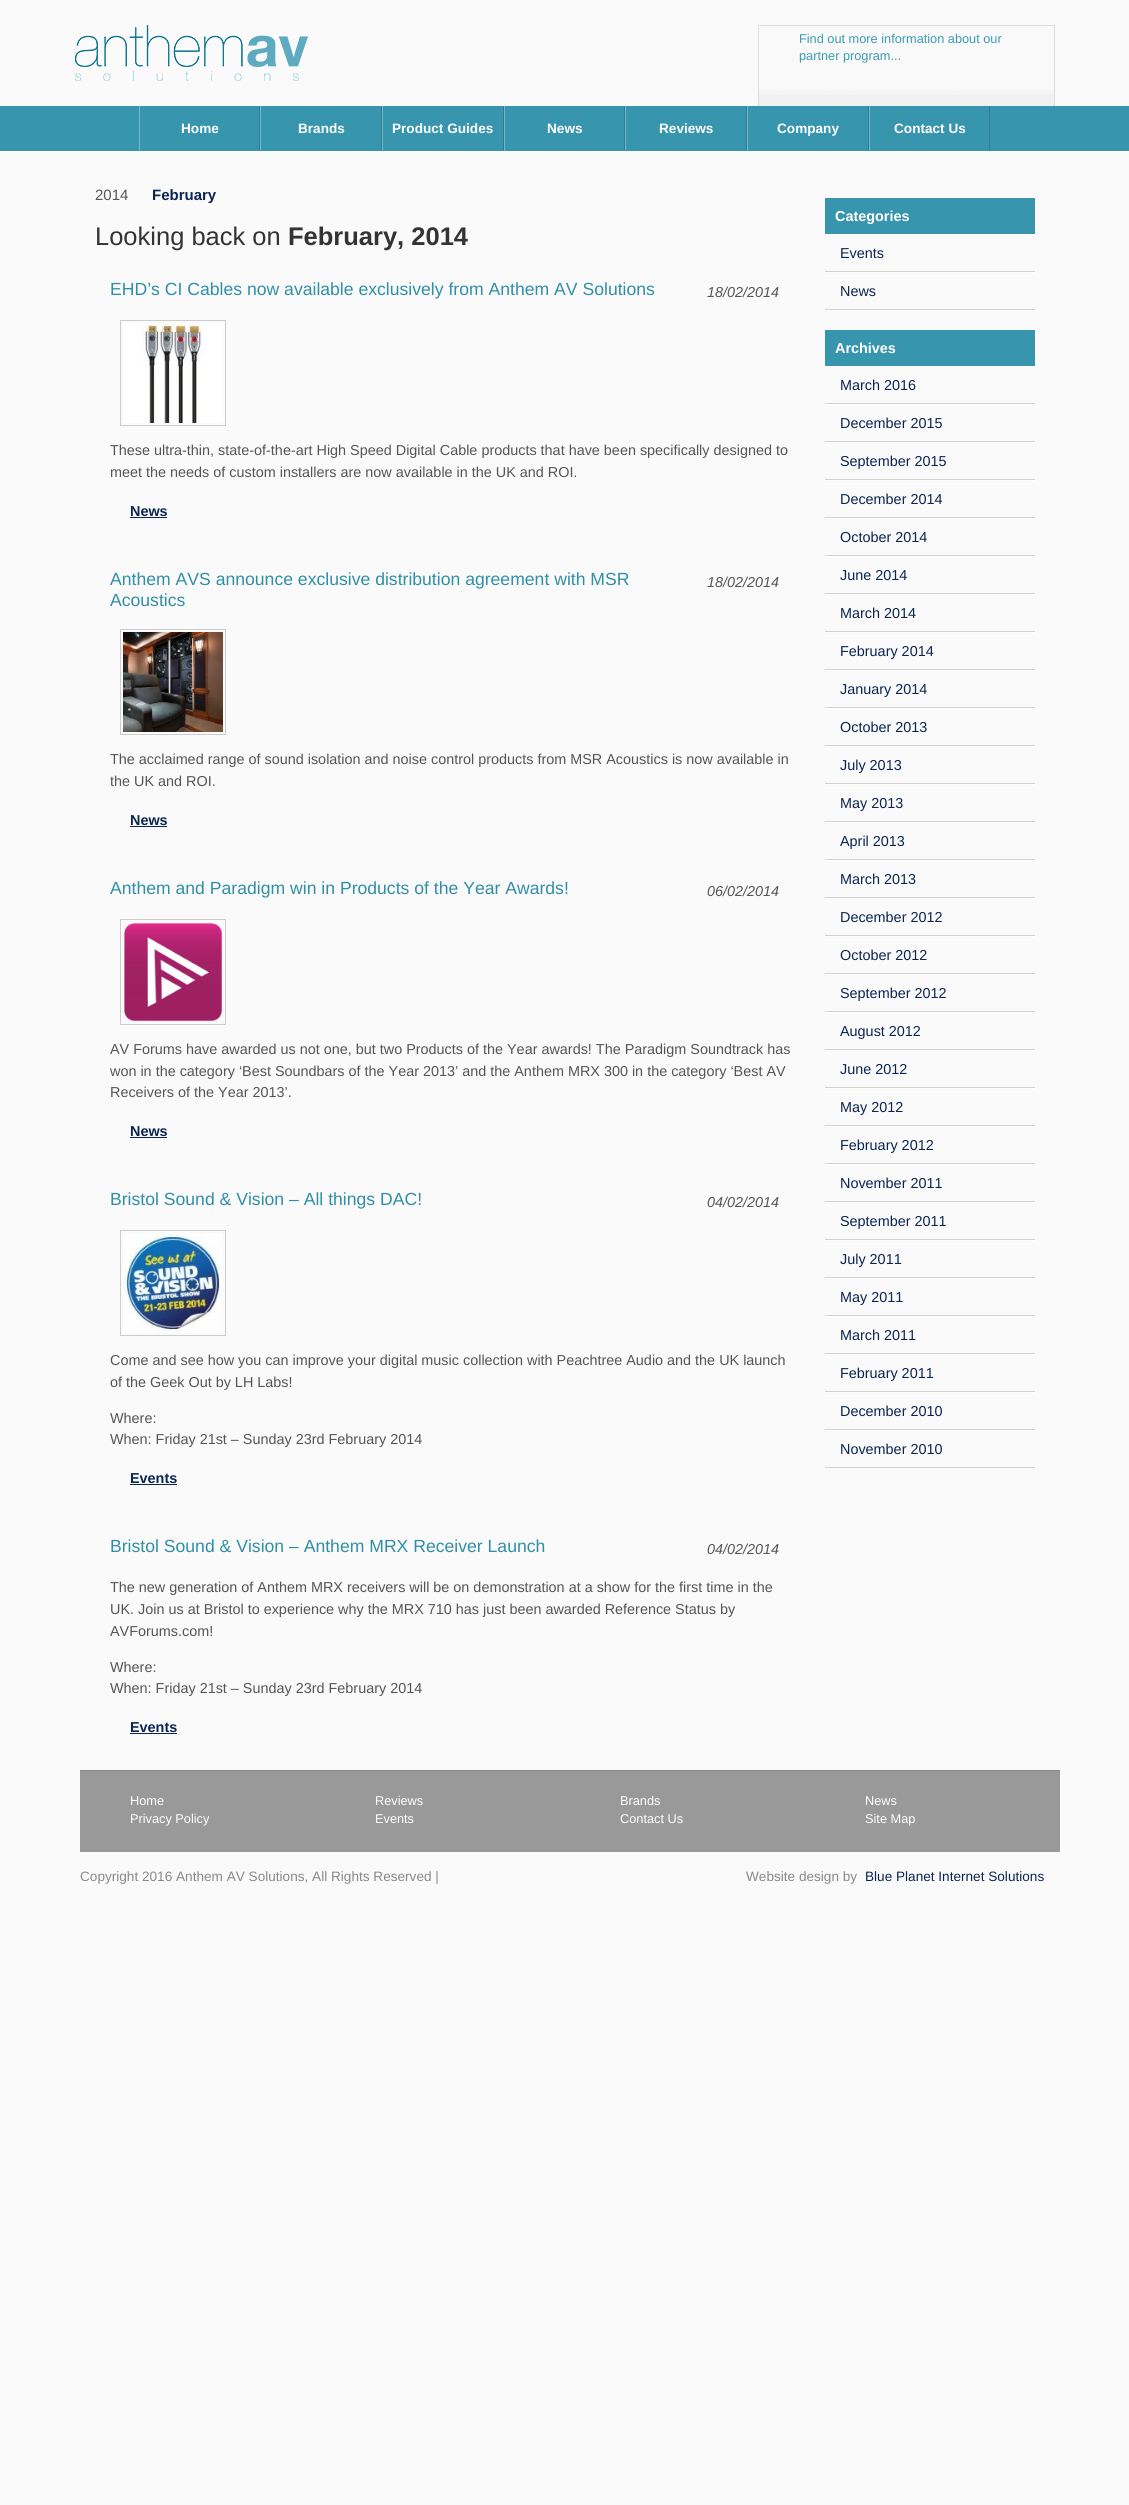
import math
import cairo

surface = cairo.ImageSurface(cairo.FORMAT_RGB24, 1129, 2505)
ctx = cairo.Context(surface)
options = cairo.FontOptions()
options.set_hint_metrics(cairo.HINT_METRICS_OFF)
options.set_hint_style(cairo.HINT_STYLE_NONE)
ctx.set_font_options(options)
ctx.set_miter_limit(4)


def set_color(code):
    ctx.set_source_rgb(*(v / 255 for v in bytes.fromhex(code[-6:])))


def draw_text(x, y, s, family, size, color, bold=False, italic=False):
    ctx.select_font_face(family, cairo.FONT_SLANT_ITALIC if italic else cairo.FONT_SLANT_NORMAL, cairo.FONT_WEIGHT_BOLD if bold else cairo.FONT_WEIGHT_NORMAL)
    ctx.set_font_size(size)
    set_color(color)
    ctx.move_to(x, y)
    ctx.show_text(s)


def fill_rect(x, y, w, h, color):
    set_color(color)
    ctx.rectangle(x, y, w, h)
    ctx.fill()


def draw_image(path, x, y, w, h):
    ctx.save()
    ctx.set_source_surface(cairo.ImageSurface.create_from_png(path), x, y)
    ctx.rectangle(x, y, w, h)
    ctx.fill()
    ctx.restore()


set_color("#fafafa")
ctx.paint()
draw_image("assets/img1.png", 75, 25, 233, 56)
fill_rect(759, 95, 295, 11, "#f0f0f1")
draw_image("assets/img2.png", 759, 26, 295, 69)
fill_rect(758, 25, 297, 1, "#dcdcdc")
fill_rect(1054, 25, 1, 81, "#dcdcdc")
fill_rect(758, 25, 1, 81, "#dcdcdc")
draw_text(799, 43, "Find out more information about our", "Liberation Sans", 12.75, "#3b9cb5")
draw_text(799, 60, "partner program...", "Liberation Sans", 12.75, "#3b9cb5")
fill_rect(0, 106, 1129, 45, "#3795ad")
fill_rect(259, 106, 1, 45, "#2e7d91")
fill_rect(139, 106, 1, 45, "#75bacb")
draw_text(181, 133, "Home", "Liberation Sans", 13.6, "#ffffff", bold=True)
fill_rect(381, 106, 1, 45, "#2e7d91")
fill_rect(260, 106, 1, 45, "#75bacb")
draw_text(298, 133, "Brands", "Liberation Sans", 13.6, "#ffffff", bold=True)
fill_rect(503, 106, 1, 45, "#2e7d91")
fill_rect(382, 106, 1, 45, "#75bacb")
draw_text(392, 133, "Product Guides", "Liberation Sans", 13.6, "#ffffff", bold=True)
fill_rect(624, 106, 1, 45, "#2e7d91")
fill_rect(504, 106, 1, 45, "#75bacb")
draw_text(547, 133, "News", "Liberation Sans", 13.6, "#ffffff", bold=True)
fill_rect(746, 106, 1, 45, "#2e7d91")
fill_rect(625, 106, 1, 45, "#75bacb")
draw_text(659, 133, "Reviews", "Liberation Sans", 13.6, "#ffffff", bold=True)
fill_rect(868, 106, 1, 45, "#2e7d91")
fill_rect(747, 106, 1, 45, "#75bacb")
draw_text(777, 133, "Company", "Liberation Sans", 13.6, "#ffffff", bold=True)
fill_rect(989, 106, 1, 45, "#2e7d91")
fill_rect(869, 106, 1, 45, "#75bacb")
draw_text(894, 133, "Contact Us", "Liberation Sans", 13.6, "#ffffff", bold=True)
fill_rect(0, 151, 1129, 1, "#ffffff")
draw_text(95, 200, "2014", "Liberation Sans", 15, "#555555")
draw_text(152, 200, "February", "Liberation Sans", 15, "#0a2552", bold=True)
draw_text(95, 245, "Looking back on", "Liberation Sans", 25.5, "#333333")
draw_text(288, 245, "February, 2014", "Liberation Sans", 25.5, "#333333", bold=True)
draw_text(110, 295, "EHD’s CI Cables now available exclusively from Anthem AV Solutions", "Liberation Sans", 17.6, "#308fa7")
draw_text(707, 297, "18/02/2014", "Liberation Sans", 14.4, "#555555", italic=True)
ctx.rectangle(120.5, 320.5, 105, 105)
set_color("#cccccc")
ctx.set_line_width(1)
ctx.stroke()
draw_image("assets/img3.png", 123, 323, 100, 100)
draw_text(110, 455, "These ultra-thin, state-of-the-art High Speed Digital Cable products that have been specifically designed to", "Liberation Sans", 14.4, "#555555")
draw_text(110, 477, "meet the needs of custom installers are now available in the UK and ROI.", "Liberation Sans", 14.4, "#555555")
draw_text(130, 516, "News", "Liberation Sans", 14.4, "#0a2552", bold=True)
fill_rect(130, 517, 37, 1, "#0a2552")
draw_text(110, 585, "Anthem AVS announce exclusive distribution agreement with MSR", "Liberation Sans", 17.6, "#308fa7")
draw_text(110, 606, "Acoustics", "Liberation Sans", 17.6, "#308fa7")
draw_text(707, 587, "18/02/2014", "Liberation Sans", 14.4, "#555555", italic=True)
ctx.rectangle(120.5, 629.5, 105, 105)
set_color("#cccccc")
ctx.stroke()
draw_image("assets/img4.png", 123, 632, 100, 100)
draw_text(110, 764, "The acclaimed range of sound isolation and noise control products from MSR Acoustics is now available in", "Liberation Sans", 14.4, "#555555")
draw_text(110, 786, "the UK and ROI.", "Liberation Sans", 14.4, "#555555")
draw_text(130, 825, "News", "Liberation Sans", 14.4, "#0a2552", bold=True)
fill_rect(130, 826, 37, 1, "#0a2552")
draw_text(110, 894, "Anthem and Paradigm win in Products of the Year Awards!", "Liberation Sans", 17.6, "#308fa7")
draw_text(707, 896, "06/02/2014", "Liberation Sans", 14.4, "#555555", italic=True)
ctx.rectangle(120.5, 919.5, 105, 105)
set_color("#cccccc")
ctx.stroke()
draw_image("assets/img5.png", 124, 922, 99, 100)
draw_text(110, 1054, "AV Forums have awarded us not one, but two Products of the Year awards! The Paradigm Soundtrack has", "Liberation Sans", 14.4, "#555555")
draw_text(110, 1076, "won in the category ‘Best Soundbars of the Year 2013’ and the Anthem MRX 300 in the category ‘Best AV", "Liberation Sans", 14.4, "#555555")
draw_text(110, 1097, "Receivers of the Year 2013’.", "Liberation Sans", 14.4, "#555555")
draw_text(130, 1136, "News", "Liberation Sans", 14.4, "#0a2552", bold=True)
fill_rect(130, 1137, 37, 1, "#0a2552")
draw_text(110, 1205, "Bristol Sound & Vision – All things DAC!", "Liberation Sans", 17.6, "#308fa7")
draw_text(707, 1207, "04/02/2014", "Liberation Sans", 14.4, "#555555", italic=True)
ctx.rectangle(120.5, 1230.5, 105, 105)
set_color("#cccccc")
ctx.stroke()
draw_image("assets/img6.png", 123, 1233, 100, 100)
draw_text(110, 1365, "Come and see how you can improve your digital music collection with Peachtree Audio and the UK launch", "Liberation Sans", 14.4, "#555555")
draw_text(110, 1387, "of the Geek Out by LH Labs!", "Liberation Sans", 14.4, "#555555")
draw_text(110, 1423, "Where:", "Liberation Sans", 14.4, "#555555")
draw_text(110, 1444, "When: Friday 21st – Sunday 23rd February 2014", "Liberation Sans", 14.4, "#555555")
draw_text(130, 1483, "Events", "Liberation Sans", 14.4, "#0a2552", bold=True)
fill_rect(130, 1484, 47, 1, "#0a2552")
draw_text(110, 1552, "Bristol Sound & Vision – Anthem MRX Receiver Launch", "Liberation Sans", 17.6, "#308fa7")
draw_text(707, 1554, "04/02/2014", "Liberation Sans", 14.4, "#555555", italic=True)
draw_text(110, 1592, "The new generation of Anthem MRX receivers will be on demonstration at a show for the first time in the", "Liberation Sans", 14.4, "#555555")
draw_text(110, 1614, "UK. Join us at Bristol to experience why the MRX 710 has just been awarded Reference Status by", "Liberation Sans", 14.4, "#555555")
draw_text(110, 1636, "AVForums.com!", "Liberation Sans", 14.4, "#555555")
draw_text(110, 1672, "Where:", "Liberation Sans", 14.4, "#555555")
draw_text(110, 1693, "When: Friday 21st – Sunday 23rd February 2014", "Liberation Sans", 14.4, "#555555")
draw_text(130, 1732, "Events", "Liberation Sans", 14.4, "#0a2552", bold=True)
fill_rect(130, 1733, 47, 1, "#0a2552")
fill_rect(825, 198, 210, 36, "#3795ad")
draw_text(835, 221, "Categories", "Liberation Sans", 14.4, "#ffffff", bold=True)
fill_rect(825, 234, 210, 1, "#ffffff")
fill_rect(825, 271, 210, 1, "#d1d1d1")
draw_text(840, 258, "Events", "Liberation Sans", 14.4, "#0a2552")
fill_rect(825, 272, 210, 1, "#ffffff")
fill_rect(825, 309, 210, 1, "#d1d1d1")
draw_text(840, 296, "News", "Liberation Sans", 14.4, "#0a2552")
fill_rect(825, 330, 210, 36, "#3795ad")
draw_text(835, 353, "Archives", "Liberation Sans", 14.4, "#ffffff", bold=True)
fill_rect(825, 366, 210, 1, "#ffffff")
fill_rect(825, 403, 210, 1, "#d1d1d1")
draw_text(840, 390, "March 2016", "Liberation Sans", 14.4, "#0a2552")
fill_rect(825, 404, 210, 1, "#ffffff")
fill_rect(825, 441, 210, 1, "#d1d1d1")
draw_text(840, 428, "December 2015", "Liberation Sans", 14.4, "#0a2552")
fill_rect(825, 442, 210, 1, "#ffffff")
fill_rect(825, 479, 210, 1, "#d1d1d1")
draw_text(840, 466, "September 2015", "Liberation Sans", 14.4, "#0a2552")
fill_rect(825, 480, 210, 1, "#ffffff")
fill_rect(825, 517, 210, 1, "#d1d1d1")
draw_text(840, 504, "December 2014", "Liberation Sans", 14.4, "#0a2552")
fill_rect(825, 518, 210, 1, "#ffffff")
fill_rect(825, 555, 210, 1, "#d1d1d1")
draw_text(840, 542, "October 2014", "Liberation Sans", 14.4, "#0a2552")
fill_rect(825, 556, 210, 1, "#ffffff")
fill_rect(825, 593, 210, 1, "#d1d1d1")
draw_text(840, 580, "June 2014", "Liberation Sans", 14.4, "#0a2552")
fill_rect(825, 594, 210, 1, "#ffffff")
fill_rect(825, 631, 210, 1, "#d1d1d1")
draw_text(840, 618, "March 2014", "Liberation Sans", 14.4, "#0a2552")
fill_rect(825, 632, 210, 1, "#ffffff")
fill_rect(825, 669, 210, 1, "#d1d1d1")
draw_text(840, 656, "February 2014", "Liberation Sans", 14.4, "#0a2552")
fill_rect(825, 670, 210, 1, "#ffffff")
fill_rect(825, 707, 210, 1, "#d1d1d1")
draw_text(840, 694, "January 2014", "Liberation Sans", 14.4, "#0a2552")
fill_rect(825, 708, 210, 1, "#ffffff")
fill_rect(825, 745, 210, 1, "#d1d1d1")
draw_text(840, 732, "October 2013", "Liberation Sans", 14.4, "#0a2552")
fill_rect(825, 746, 210, 1, "#ffffff")
fill_rect(825, 783, 210, 1, "#d1d1d1")
draw_text(840, 770, "July 2013", "Liberation Sans", 14.4, "#0a2552")
fill_rect(825, 784, 210, 1, "#ffffff")
fill_rect(825, 821, 210, 1, "#d1d1d1")
draw_text(840, 808, "May 2013", "Liberation Sans", 14.4, "#0a2552")
fill_rect(825, 822, 210, 1, "#ffffff")
fill_rect(825, 859, 210, 1, "#d1d1d1")
draw_text(840, 846, "April 2013", "Liberation Sans", 14.4, "#0a2552")
fill_rect(825, 860, 210, 1, "#ffffff")
fill_rect(825, 897, 210, 1, "#d1d1d1")
draw_text(840, 884, "March 2013", "Liberation Sans", 14.4, "#0a2552")
fill_rect(825, 898, 210, 1, "#ffffff")
fill_rect(825, 935, 210, 1, "#d1d1d1")
draw_text(840, 922, "December 2012", "Liberation Sans", 14.4, "#0a2552")
fill_rect(825, 936, 210, 1, "#ffffff")
fill_rect(825, 973, 210, 1, "#d1d1d1")
draw_text(840, 960, "October 2012", "Liberation Sans", 14.4, "#0a2552")
fill_rect(825, 974, 210, 1, "#ffffff")
fill_rect(825, 1011, 210, 1, "#d1d1d1")
draw_text(840, 998, "September 2012", "Liberation Sans", 14.4, "#0a2552")
fill_rect(825, 1012, 210, 1, "#ffffff")
fill_rect(825, 1049, 210, 1, "#d1d1d1")
draw_text(840, 1036, "August 2012", "Liberation Sans", 14.4, "#0a2552")
fill_rect(825, 1050, 210, 1, "#ffffff")
fill_rect(825, 1087, 210, 1, "#d1d1d1")
draw_text(840, 1074, "June 2012", "Liberation Sans", 14.4, "#0a2552")
fill_rect(825, 1088, 210, 1, "#ffffff")
fill_rect(825, 1125, 210, 1, "#d1d1d1")
draw_text(840, 1112, "May 2012", "Liberation Sans", 14.4, "#0a2552")
fill_rect(825, 1126, 210, 1, "#ffffff")
fill_rect(825, 1163, 210, 1, "#d1d1d1")
draw_text(840, 1150, "February 2012", "Liberation Sans", 14.4, "#0a2552")
fill_rect(825, 1164, 210, 1, "#ffffff")
fill_rect(825, 1201, 210, 1, "#d1d1d1")
draw_text(840, 1188, "November 2011", "Liberation Sans", 14.4, "#0a2552")
fill_rect(825, 1202, 210, 1, "#ffffff")
fill_rect(825, 1239, 210, 1, "#d1d1d1")
draw_text(840, 1226, "September 2011", "Liberation Sans", 14.4, "#0a2552")
fill_rect(825, 1240, 210, 1, "#ffffff")
fill_rect(825, 1277, 210, 1, "#d1d1d1")
draw_text(840, 1264, "July 2011", "Liberation Sans", 14.4, "#0a2552")
fill_rect(825, 1278, 210, 1, "#ffffff")
fill_rect(825, 1315, 210, 1, "#d1d1d1")
draw_text(840, 1302, "May 2011", "Liberation Sans", 14.4, "#0a2552")
fill_rect(825, 1316, 210, 1, "#ffffff")
fill_rect(825, 1353, 210, 1, "#d1d1d1")
draw_text(840, 1340, "March 2011", "Liberation Sans", 14.4, "#0a2552")
fill_rect(825, 1354, 210, 1, "#ffffff")
fill_rect(825, 1391, 210, 1, "#d1d1d1")
draw_text(840, 1378, "February 2011", "Liberation Sans", 14.4, "#0a2552")
fill_rect(825, 1392, 210, 1, "#ffffff")
fill_rect(825, 1429, 210, 1, "#d1d1d1")
draw_text(840, 1416, "December 2010", "Liberation Sans", 14.4, "#0a2552")
fill_rect(825, 1430, 210, 1, "#ffffff")
fill_rect(825, 1467, 210, 1, "#d1d1d1")
draw_text(840, 1454, "November 2010", "Liberation Sans", 14.4, "#0a2552")
fill_rect(80, 1771, 980, 81, "#999999")
fill_rect(80, 1770, 980, 1, "#888888")
draw_text(130, 1805, "Home", "Liberation Sans", 12.75, "#ffffff")
draw_text(375, 1805, "Reviews", "Liberation Sans", 12.75, "#ffffff")
draw_text(620, 1805, "Brands", "Liberation Sans", 12.75, "#ffffff")
draw_text(865, 1805, "News", "Liberation Sans", 12.75, "#ffffff")
draw_text(130, 1823, "Privacy Policy", "Liberation Sans", 12.75, "#ffffff")
draw_text(375, 1823, "Events", "Liberation Sans", 12.75, "#ffffff")
draw_text(620, 1823, "Contact Us", "Liberation Sans", 12.75, "#ffffff")
draw_text(865, 1823, "Site Map", "Liberation Sans", 12.75, "#ffffff")
draw_text(80, 1881, "Copyright 2016 Anthem AV Solutions, All Rights Reserved |", "Liberation Sans", 13.6, "#888888")
draw_text(746, 1881, "Website design by", "Liberation Sans", 13.6, "#888888")
draw_text(865, 1881, "Blue Planet Internet Solutions", "Liberation Sans", 13.6, "#0a2552")
surface.write_to_png("output.png")
